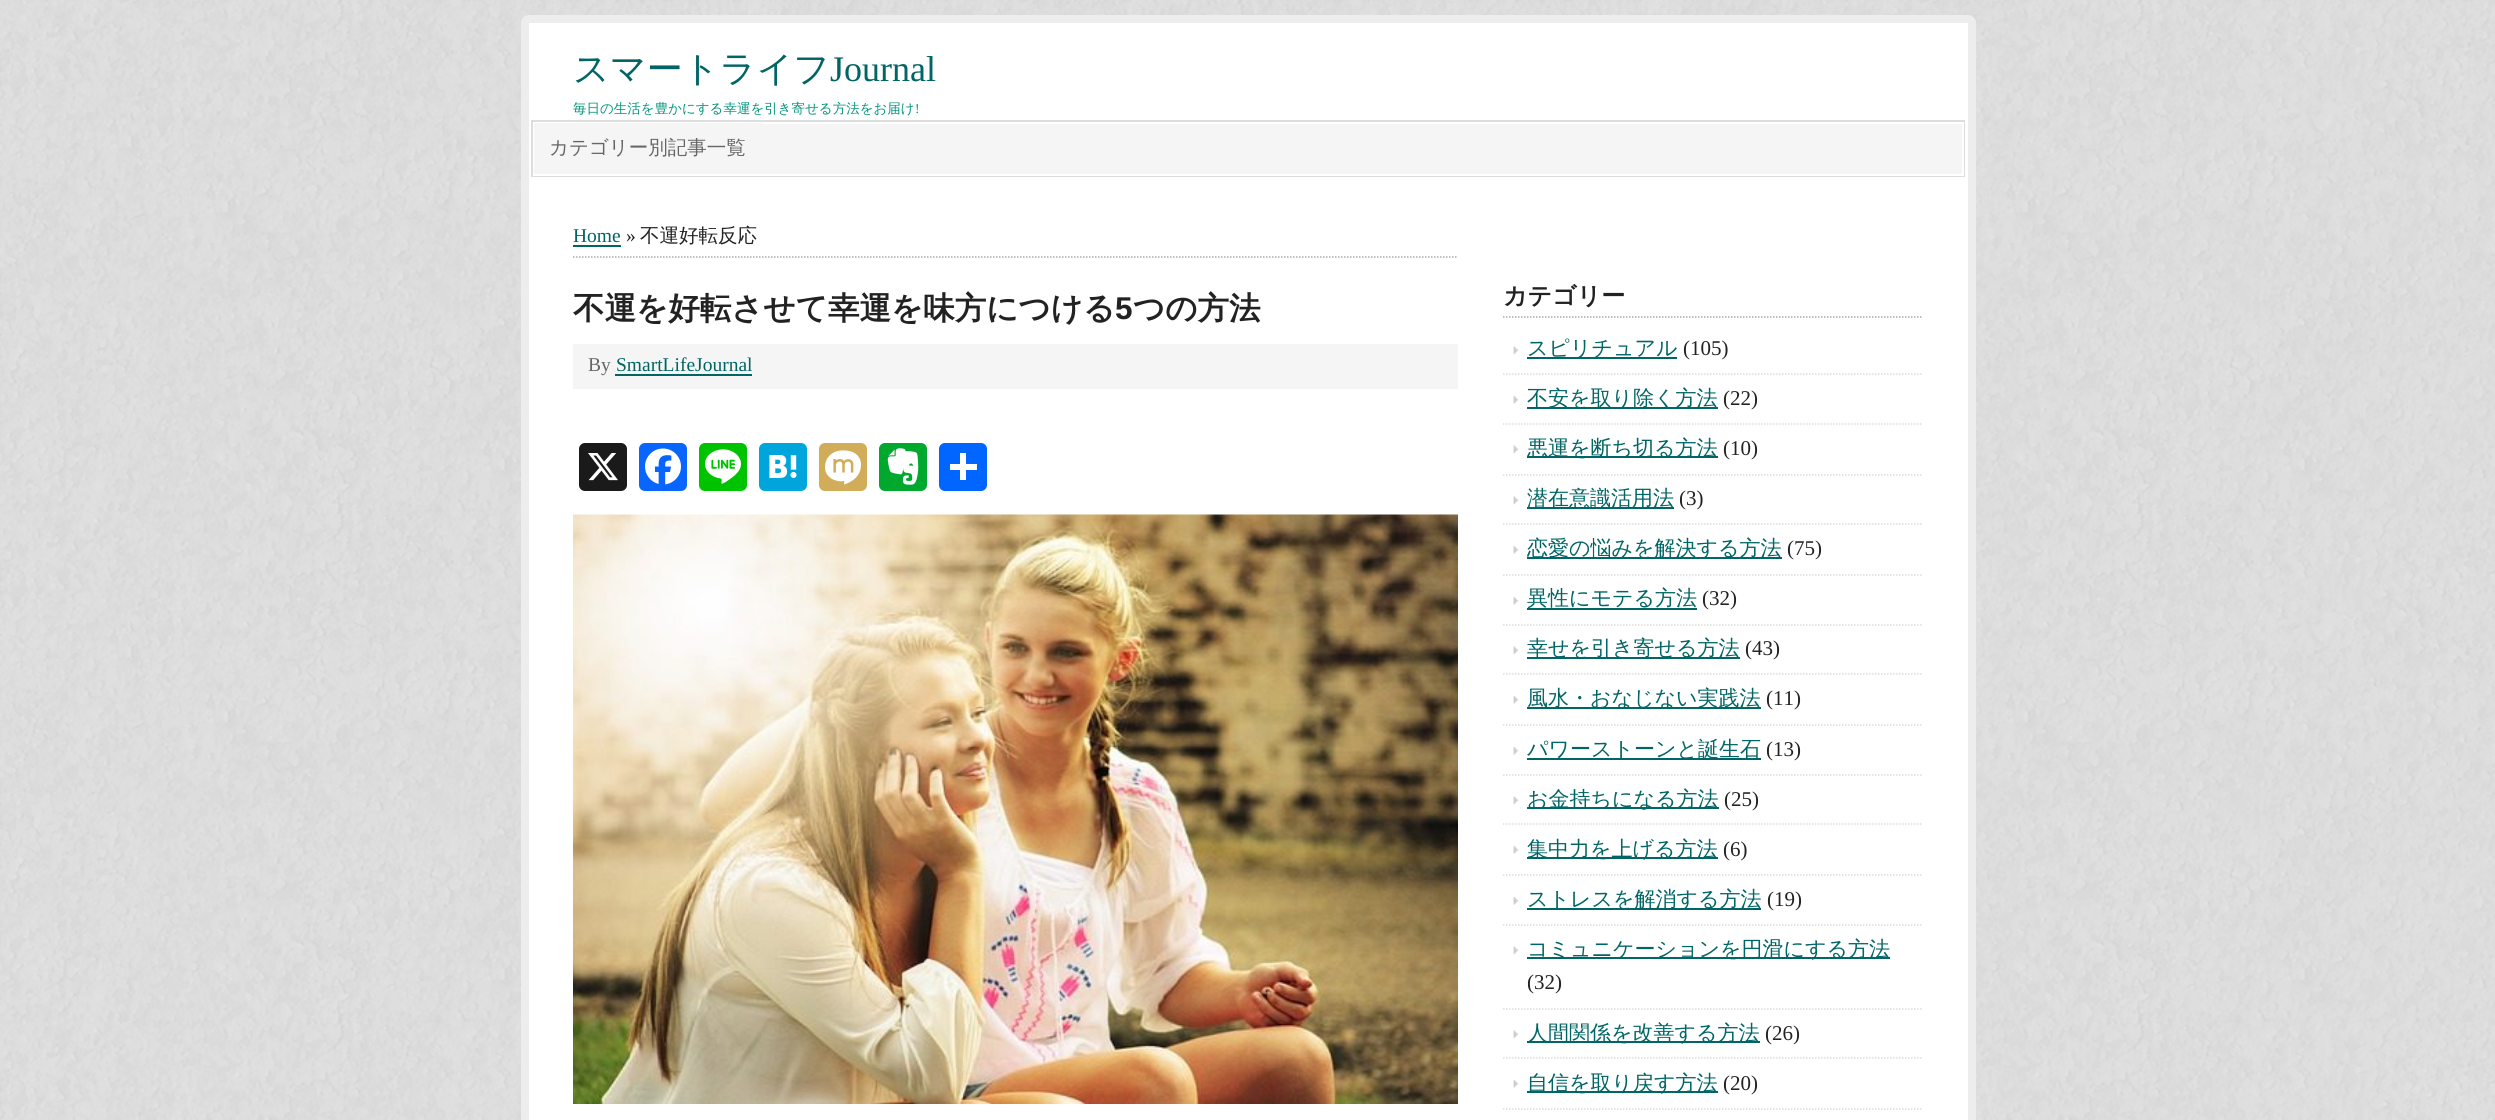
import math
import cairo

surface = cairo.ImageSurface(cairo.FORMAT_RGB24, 2495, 1120)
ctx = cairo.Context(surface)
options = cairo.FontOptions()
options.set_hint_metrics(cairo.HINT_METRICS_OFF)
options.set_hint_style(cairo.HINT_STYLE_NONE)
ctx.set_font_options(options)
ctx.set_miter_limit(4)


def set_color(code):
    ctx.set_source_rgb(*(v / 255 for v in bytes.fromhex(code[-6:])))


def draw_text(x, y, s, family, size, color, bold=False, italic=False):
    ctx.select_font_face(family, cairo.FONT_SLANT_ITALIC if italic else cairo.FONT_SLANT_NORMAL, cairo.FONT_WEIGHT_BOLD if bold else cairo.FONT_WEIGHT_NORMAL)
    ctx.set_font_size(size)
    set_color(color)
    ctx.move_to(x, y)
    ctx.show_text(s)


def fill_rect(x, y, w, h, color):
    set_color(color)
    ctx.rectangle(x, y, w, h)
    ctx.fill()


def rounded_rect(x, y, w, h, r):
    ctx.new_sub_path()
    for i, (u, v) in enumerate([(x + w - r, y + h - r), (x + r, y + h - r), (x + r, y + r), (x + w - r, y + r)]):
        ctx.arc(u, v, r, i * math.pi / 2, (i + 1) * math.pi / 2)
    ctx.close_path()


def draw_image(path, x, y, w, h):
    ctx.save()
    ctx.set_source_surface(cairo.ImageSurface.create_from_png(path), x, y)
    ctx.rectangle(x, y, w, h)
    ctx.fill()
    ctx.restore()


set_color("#ffffff")
ctx.paint()
draw_image("assets/img1.png", 0, 0, 2495, 1120)
set_color("#ffffff")
rounded_rect(525, 19, 1447, 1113, 4)
ctx.fill_preserve()
set_color("#ededed")
ctx.set_line_width(8)
ctx.stroke()
draw_text(573, 81, "スマートライフ", "WenQuanYi Zen Hei Medium", 36, "#006564")
draw_text(830, 81, "Journal", "Liberation Serif", 36, "#006564")
draw_text(573, 113, "毎日の生活を豊かにする幸運を引き寄せる方法をお届け", "WenQuanYi Zen Hei Medium", 13.5, "#05947e")
draw_text(915, 113, "!", "Liberation Serif", 13.5, "#05947e")
fill_rect(761, 124, 1201, 50, "#f5f5f5")
ctx.rectangle(532, 121, 1432, 55)
set_color("#dddddd")
ctx.set_line_width(2)
ctx.stroke()
ctx.rectangle(534, 123, 1429, 52)
set_color("#ffffff")
ctx.stroke()
fill_rect(534, 123, 227, 51, "#f5f5f5")
draw_text(549, 154, "カテゴリー別記事一覧", "WenQuanYi Zen Hei Medium", 19.5, "#666666")
ctx.new_path()
ctx.move_to(573, 257)
ctx.line_to(1458, 257)
set_color("#aaaaaa")
ctx.set_line_width(1.5)
ctx.set_dash([1.5, 1.5])
ctx.stroke()
draw_text(573, 242, "Home", "Liberation Serif", 19.5, "#006564")
fill_rect(573, 245, 48, 2, "#006564")
draw_text(626, 242, "»", "Liberation Serif", 19.5, "#222222")
draw_text(640, 242, "不運好転反応", "WenQuanYi Zen Hei Medium", 19.5, "#222222")
draw_text(573, 319, "不運を好転させて幸運を味方につける", "WenQuanYi Zen Hei", 31.5, "#222222", bold=True)
draw_text(1115, 319, "5", "Liberation Sans", 31.5, "#222222", bold=True)
draw_text(1133, 319, "つの方法", "WenQuanYi Zen Hei", 31.5, "#222222", bold=True)
fill_rect(573, 344, 885, 45, "#f5f5f5")
draw_text(588, 371, "By", "Liberation Serif", 19.5, "#666666")
draw_text(616, 371, "SmartLifeJournal", "Liberation Serif", 19.5, "#006564")
fill_rect(615, 374, 137, 2, "#006564")
set_color("#1a1a1a")
rounded_rect(579, 443, 48, 48, 6)
ctx.fill()
draw_image("assets/img2.png", 588, 453, 30, 28)
set_color("#0866ff")
rounded_rect(639, 443, 48, 48, 6)
ctx.fill()
draw_image("assets/img3.png", 645, 448, 36, 37)
set_color("#00c300")
rounded_rect(699, 443, 48, 48, 6)
ctx.fill()
draw_image("assets/img4.png", 705, 449, 36, 35)
set_color("#00a6db")
rounded_rect(759, 443, 48, 48, 6)
ctx.fill()
draw_image("assets/img5.png", 769, 455, 28, 23)
set_color("#d1ad5a")
rounded_rect(819, 443, 48, 48, 6)
ctx.fill()
draw_image("assets/img6.png", 825, 450, 36, 35)
set_color("#00a82d")
rounded_rect(879, 443, 48, 48, 6)
ctx.fill()
draw_image("assets/img7.png", 887, 448, 32, 37)
set_color("#0166ff")
rounded_rect(939, 443, 48, 48, 6)
ctx.fill()
fill_rect(960, 453, 6, 27, "#ffffff")
fill_rect(950, 464, 27, 6, "#ffffff")
draw_image("assets/img8.png", 573, 514, 885, 590)
ctx.new_path()
ctx.move_to(1503, 317)
ctx.line_to(1923, 317)
set_color("#aaaaaa")
ctx.stroke()
draw_text(1503, 304, "カテゴリー", "WenQuanYi Zen Hei", 24, "#222222", bold=True)
draw_image("assets/img9.png", 1513, 346, 6, 9)
ctx.new_path()
ctx.move_to(1503, 374)
ctx.line_to(1923, 374)
set_color("#dddddd")
ctx.stroke()
fill_rect(1527, 357, 150, 2, "#006564")
draw_text(1527, 355, "スピリチュアル", "WenQuanYi Zen Hei Medium", 21, "#006564")
draw_text(1683, 355, "(105)", "Liberation Serif", 21, "#222222")
draw_image("assets/img10.png", 1513, 395, 6, 9)
ctx.new_path()
ctx.move_to(1503, 424)
ctx.line_to(1923, 424)
set_color("#dddddd")
ctx.stroke()
fill_rect(1527, 407, 191, 2, "#006564")
draw_text(1527, 405, "不安を取り除く方法", "WenQuanYi Zen Hei Medium", 21, "#006564")
draw_text(1723, 405, "(22)", "Liberation Serif", 21, "#222222")
draw_image("assets/img9.png", 1513, 445, 6, 9)
ctx.new_path()
ctx.move_to(1503, 475)
ctx.line_to(1923, 475)
set_color("#dddddd")
ctx.stroke()
fill_rect(1527, 456, 191, 2, "#006564")
draw_text(1527, 455, "悪運を断ち切る方法", "WenQuanYi Zen Hei Medium", 21, "#006564")
draw_text(1723, 455, "(10)", "Liberation Serif", 21, "#222222")
draw_image("assets/img9.png", 1513, 496, 6, 9)
ctx.new_path()
ctx.move_to(1503, 524)
ctx.line_to(1923, 524)
set_color("#dddddd")
ctx.stroke()
fill_rect(1527, 507, 147, 2, "#006564")
draw_text(1527, 505, "潜在意識活用法", "WenQuanYi Zen Hei Medium", 21, "#006564")
draw_text(1679, 505, "(3)", "Liberation Serif", 21, "#222222")
draw_image("assets/img10.png", 1513, 545, 6, 9)
ctx.new_path()
ctx.move_to(1503, 575)
ctx.line_to(1923, 575)
set_color("#dddddd")
ctx.stroke()
fill_rect(1527, 557, 255, 2, "#006564")
draw_text(1527, 555, "恋愛の悩みを解決する方法", "WenQuanYi Zen Hei Medium", 21, "#006564")
draw_text(1787, 555, "(75)", "Liberation Serif", 21, "#222222")
draw_image("assets/img10.png", 1513, 596, 6, 9)
ctx.new_path()
ctx.move_to(1503, 625)
ctx.line_to(1923, 625)
set_color("#dddddd")
ctx.stroke()
fill_rect(1527, 608, 170, 2, "#006564")
draw_text(1527, 605, "異性にモテる方法", "WenQuanYi Zen Hei Medium", 21, "#006564")
draw_text(1702, 605, "(32)", "Liberation Serif", 21, "#222222")
draw_image("assets/img9.png", 1513, 646, 6, 9)
ctx.new_path()
ctx.move_to(1503, 674)
ctx.line_to(1923, 674)
set_color("#dddddd")
ctx.stroke()
fill_rect(1527, 657, 213, 2, "#006564")
draw_text(1527, 655, "幸せを引き寄せる方法", "WenQuanYi Zen Hei Medium", 21, "#006564")
draw_text(1745, 655, "(43)", "Liberation Serif", 21, "#222222")
draw_image("assets/img10.png", 1513, 695, 6, 9)
ctx.new_path()
ctx.move_to(1503, 725)
ctx.line_to(1923, 725)
set_color("#dddddd")
ctx.stroke()
fill_rect(1527, 707, 234, 2, "#006564")
draw_text(1527, 705, "風水・おなじない実践法", "WenQuanYi Zen Hei Medium", 21, "#006564")
draw_text(1766, 705, "(11)", "Liberation Serif", 21, "#222222")
draw_image("assets/img10.png", 1513, 746, 6, 9)
ctx.new_path()
ctx.move_to(1503, 775)
ctx.line_to(1923, 775)
set_color("#dddddd")
ctx.stroke()
fill_rect(1527, 758, 234, 2, "#006564")
draw_text(1527, 756, "パワーストーンと誕生石", "WenQuanYi Zen Hei Medium", 21, "#006564")
draw_text(1766, 756, "(13)", "Liberation Serif", 21, "#222222")
draw_image("assets/img9.png", 1513, 796, 6, 9)
ctx.new_path()
ctx.move_to(1503, 824)
ctx.line_to(1923, 824)
set_color("#dddddd")
ctx.stroke()
fill_rect(1527, 807, 192, 2, "#006564")
draw_text(1527, 806, "お金持ちになる方法", "WenQuanYi Zen Hei Medium", 21, "#006564")
draw_text(1724, 806, "(25)", "Liberation Serif", 21, "#222222")
draw_image("assets/img10.png", 1513, 845, 6, 9)
ctx.new_path()
ctx.move_to(1503, 875)
ctx.line_to(1923, 875)
set_color("#dddddd")
ctx.stroke()
fill_rect(1527, 857, 191, 2, "#006564")
draw_text(1527, 856, "集中力を上げる方法", "WenQuanYi Zen Hei Medium", 21, "#006564")
draw_text(1723, 856, "(6)", "Liberation Serif", 21, "#222222")
draw_image("assets/img10.png", 1513, 896, 6, 9)
ctx.new_path()
ctx.move_to(1503, 925)
ctx.line_to(1923, 925)
set_color("#dddddd")
ctx.stroke()
fill_rect(1527, 908, 234, 2, "#006564")
draw_text(1527, 906, "ストレスを解消する方法", "WenQuanYi Zen Hei Medium", 21, "#006564")
draw_text(1767, 906, "(19)", "Liberation Serif", 21, "#222222")
draw_image("assets/img9.png", 1513, 946, 6, 9)
ctx.new_path()
ctx.move_to(1503, 1009)
ctx.line_to(1923, 1009)
set_color("#dddddd")
ctx.stroke()
fill_rect(1527, 957, 363, 2, "#006564")
draw_text(1527, 956, "コミュニケーションを円滑にする方法", "WenQuanYi Zen Hei Medium", 21, "#006564")
draw_text(1527, 989, "(32)", "Liberation Serif", 21, "#222222")
draw_image("assets/img9.png", 1513, 1030, 6, 9)
ctx.new_path()
ctx.move_to(1503, 1058)
ctx.line_to(1923, 1058)
set_color("#dddddd")
ctx.stroke()
fill_rect(1527, 1041, 233, 2, "#006564")
draw_text(1527, 1040, "人間関係を改善する方法", "WenQuanYi Zen Hei Medium", 21, "#006564")
draw_text(1765, 1040, "(26)", "Liberation Serif", 21, "#222222")
draw_image("assets/img10.png", 1513, 1079, 6, 9)
ctx.new_path()
ctx.move_to(1503, 1109)
ctx.line_to(1923, 1109)
set_color("#dddddd")
ctx.stroke()
fill_rect(1527, 1091, 191, 2, "#006564")
draw_text(1527, 1090, "自信を取り戻す方法", "WenQuanYi Zen Hei Medium", 21, "#006564")
draw_text(1723, 1090, "(20)", "Liberation Serif", 21, "#222222")
surface.write_to_png("output.png")
